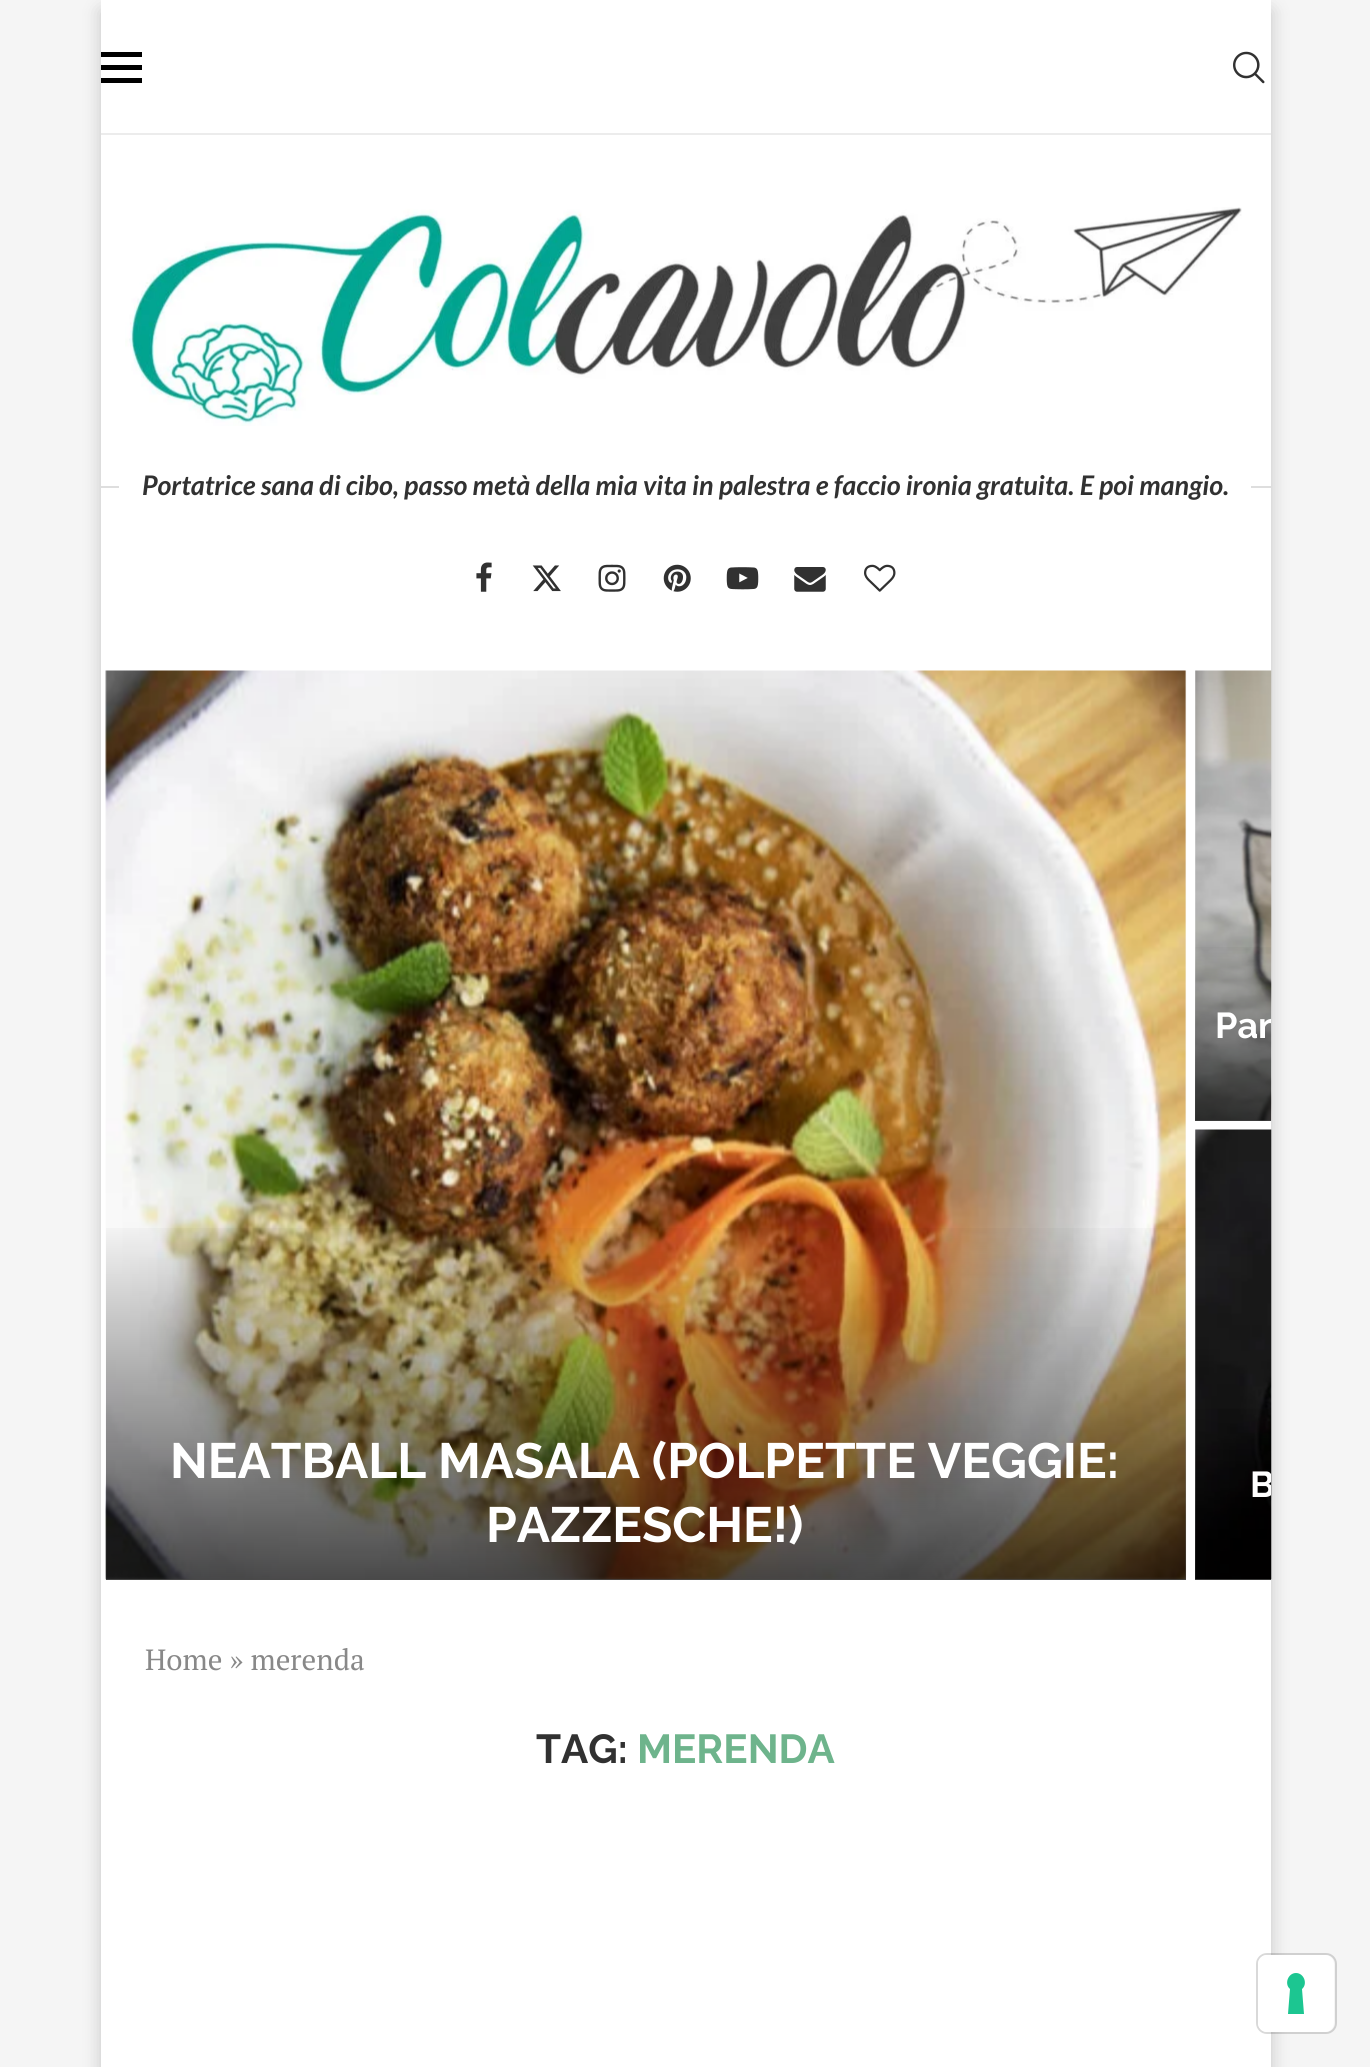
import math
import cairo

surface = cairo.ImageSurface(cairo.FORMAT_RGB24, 1370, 2067)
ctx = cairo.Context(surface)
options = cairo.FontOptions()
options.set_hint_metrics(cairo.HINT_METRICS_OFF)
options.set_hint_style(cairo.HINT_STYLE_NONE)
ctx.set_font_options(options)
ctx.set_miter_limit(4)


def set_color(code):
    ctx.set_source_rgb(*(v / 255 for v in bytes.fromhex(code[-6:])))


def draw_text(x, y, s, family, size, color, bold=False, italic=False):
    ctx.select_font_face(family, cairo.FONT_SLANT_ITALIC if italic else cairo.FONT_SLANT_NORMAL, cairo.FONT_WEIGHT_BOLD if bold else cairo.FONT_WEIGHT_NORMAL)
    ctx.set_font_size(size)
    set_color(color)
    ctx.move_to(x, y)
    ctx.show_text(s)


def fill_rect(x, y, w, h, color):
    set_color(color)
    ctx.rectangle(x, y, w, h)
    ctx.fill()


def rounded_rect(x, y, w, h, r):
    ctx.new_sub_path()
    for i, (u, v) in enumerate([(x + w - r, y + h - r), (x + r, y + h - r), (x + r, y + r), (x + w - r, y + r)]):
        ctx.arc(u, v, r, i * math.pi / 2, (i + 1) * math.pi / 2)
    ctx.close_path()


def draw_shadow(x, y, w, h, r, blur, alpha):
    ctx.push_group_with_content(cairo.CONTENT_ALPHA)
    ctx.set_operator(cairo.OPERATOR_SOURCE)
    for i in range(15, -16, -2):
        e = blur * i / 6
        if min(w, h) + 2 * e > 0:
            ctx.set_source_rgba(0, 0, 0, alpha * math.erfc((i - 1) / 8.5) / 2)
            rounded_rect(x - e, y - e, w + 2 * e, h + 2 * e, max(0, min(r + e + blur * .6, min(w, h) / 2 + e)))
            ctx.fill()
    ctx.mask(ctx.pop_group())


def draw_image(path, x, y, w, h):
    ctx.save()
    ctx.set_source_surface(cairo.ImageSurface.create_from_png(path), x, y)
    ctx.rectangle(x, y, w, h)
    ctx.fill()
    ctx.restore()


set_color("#f5f5f5")
ctx.paint()
set_color("#000000")
draw_shadow(101, 11, 1170, 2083, 0, 9, 0.2)
fill_rect(101, 0, 1170, 2067, "#ffffff")
fill_rect(101, 133, 1170, 2, "#ececec")
fill_rect(101, 52, 41, 5, "#000000")
fill_rect(101, 65, 41, 5, "#000000")
fill_rect(101, 78, 41, 5, "#000000")
draw_image("assets/img1.png", 1233, 51, 32, 33)
draw_image("assets/img2.png", 125, 207, 1117, 219)
fill_rect(101, 486, 18, 2, "#dedede")
draw_text(142, 495, "Portatrice sana di cibo, passo metà della mia vita in palestra e faccio ironia gratuita. E poi mangio.", "Lato", 27, "#313131", bold=True, italic=True)
fill_rect(1251, 486, 20, 2, "#dedede")
draw_image("assets/img3.png", 476, 562, 16, 30)
draw_image("assets/img4.png", 532, 565, 29, 27)
draw_image("assets/img5.png", 598, 564, 28, 28)
draw_image("assets/img6.png", 663, 564, 28, 28)
draw_image("assets/img7.png", 726, 567, 33, 23)
draw_image("assets/img8.png", 794, 567, 32, 25)
draw_image("assets/img9.png", 864, 564, 32, 28)
fill_rect(106, 671, 1080, 909, "#f5f5f5")
draw_image("assets/img10.png", 105, 670, 1082, 910)
gradient = cairo.LinearGradient(646, 671, 646, 1580)
gradient.add_color_stop_rgba(0.6, 0, 0, 0, 0)
gradient.add_color_stop_rgba(1, 0, 0, 0, 0.7)
ctx.set_source(gradient)
ctx.rectangle(106, 1228, 1080, 352)
ctx.fill()
draw_text(170, 1478, "NEATBALL MASALA (POLPETTE VEGGIE:", "Raleway", 49.5, "#ffffff", bold=True)
draw_text(486, 1542, "PAZZESCHE!)", "Raleway", 49.5, "#ffffff", bold=True)
fill_rect(1195, 671, 76, 450, "#f5f5f5")
draw_image("assets/img11.png", 1195, 670, 77, 451)
gradient = cairo.LinearGradient(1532, 671, 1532, 1121)
gradient.add_color_stop_rgba(0.6, 0, 0, 0, 0)
gradient.add_color_stop_rgba(1, 0, 0, 0, 0.7)
ctx.set_source(gradient)
ctx.rectangle(1195, 947, 76, 174)
ctx.fill()
ctx.save()
ctx.rectangle(1195, 671, 76, 450)
ctx.clip()
draw_text(1215, 1038, "Pan", "Raleway", 36, "#ffffff", bold=True)
ctx.restore()
fill_rect(1195, 1130, 76, 450, "#f5f5f5")
draw_image("assets/img12.png", 1195, 1129, 77, 451)
gradient = cairo.LinearGradient(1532, 1130, 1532, 1580)
gradient.add_color_stop_rgba(0.6, 0, 0, 0, 0)
gradient.add_color_stop_rgba(1, 0, 0, 0, 0.7)
ctx.set_source(gradient)
ctx.rectangle(1195, 1409, 76, 171)
ctx.fill()
ctx.save()
ctx.rectangle(1195, 1130, 76, 450)
ctx.clip()
draw_text(1250, 1497, "B", "Raleway", 36, "#ffffff", bold=True)
ctx.restore()
draw_text(145, 1670, "Home » merenda", "PT Serif", 29.25, "#888888")
draw_text(536, 1763, "TAG:", "Raleway", 40.5, "#313131", bold=True)
draw_text(637, 1763, "MERENDA", "Raleway", 40.5, "#6eb48c", bold=True)
rounded_rect(1257, 1954, 79, 79, 10)
ctx.set_source_rgba(0, 0, 0, 0.15)
ctx.stroke()
set_color("#ffffff")
rounded_rect(1258, 1955, 76, 77, 9)
ctx.fill()
set_color("#1cc691")
ctx.set_fill_rule(cairo.FILL_RULE_EVEN_ODD)
ctx.new_path()
ctx.move_to(1296, 1973)
ctx.curve_to(1304, 1973, 1308, 1984, 1302, 1989)
ctx.line_to(1304, 2014)
ctx.line_to(1288, 2014)
ctx.line_to(1290, 1989)
ctx.curve_to(1284, 1984, 1288, 1973, 1296, 1973)
ctx.close_path()
ctx.fill()
surface.write_to_png("output.png")
